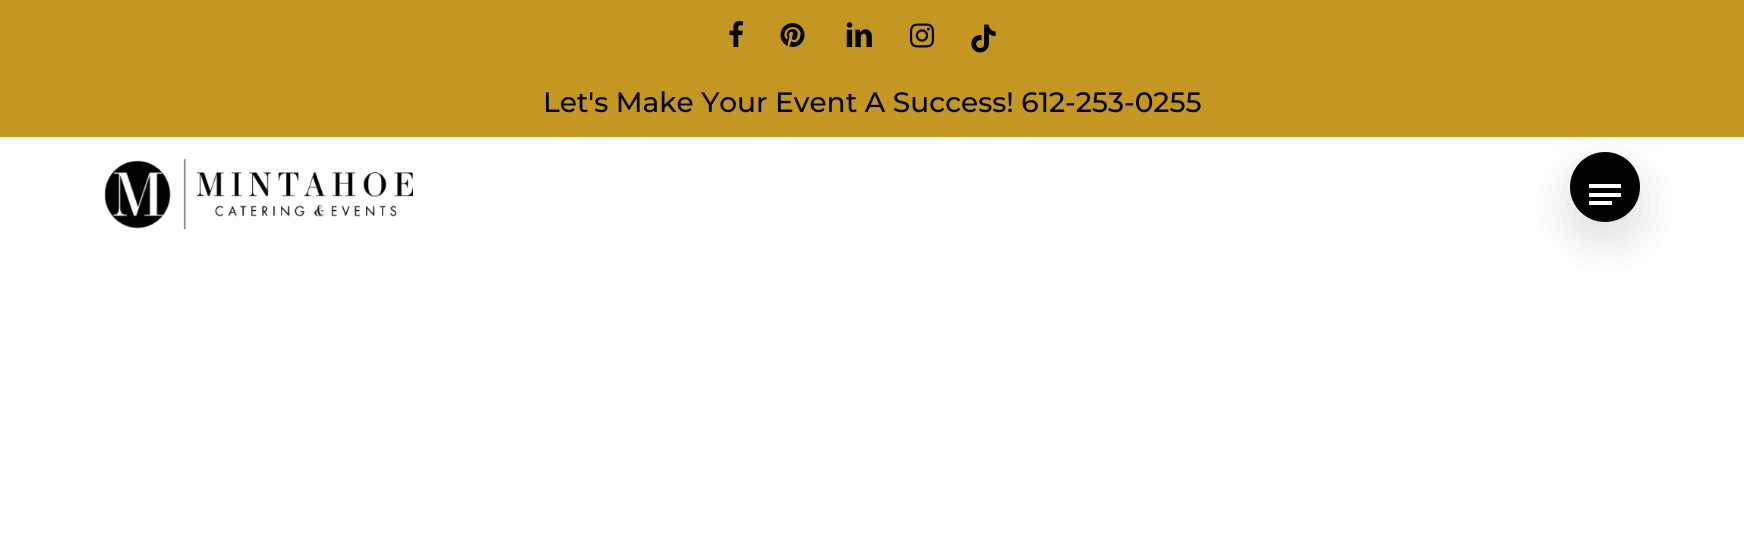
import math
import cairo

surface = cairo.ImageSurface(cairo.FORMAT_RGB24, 1744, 558)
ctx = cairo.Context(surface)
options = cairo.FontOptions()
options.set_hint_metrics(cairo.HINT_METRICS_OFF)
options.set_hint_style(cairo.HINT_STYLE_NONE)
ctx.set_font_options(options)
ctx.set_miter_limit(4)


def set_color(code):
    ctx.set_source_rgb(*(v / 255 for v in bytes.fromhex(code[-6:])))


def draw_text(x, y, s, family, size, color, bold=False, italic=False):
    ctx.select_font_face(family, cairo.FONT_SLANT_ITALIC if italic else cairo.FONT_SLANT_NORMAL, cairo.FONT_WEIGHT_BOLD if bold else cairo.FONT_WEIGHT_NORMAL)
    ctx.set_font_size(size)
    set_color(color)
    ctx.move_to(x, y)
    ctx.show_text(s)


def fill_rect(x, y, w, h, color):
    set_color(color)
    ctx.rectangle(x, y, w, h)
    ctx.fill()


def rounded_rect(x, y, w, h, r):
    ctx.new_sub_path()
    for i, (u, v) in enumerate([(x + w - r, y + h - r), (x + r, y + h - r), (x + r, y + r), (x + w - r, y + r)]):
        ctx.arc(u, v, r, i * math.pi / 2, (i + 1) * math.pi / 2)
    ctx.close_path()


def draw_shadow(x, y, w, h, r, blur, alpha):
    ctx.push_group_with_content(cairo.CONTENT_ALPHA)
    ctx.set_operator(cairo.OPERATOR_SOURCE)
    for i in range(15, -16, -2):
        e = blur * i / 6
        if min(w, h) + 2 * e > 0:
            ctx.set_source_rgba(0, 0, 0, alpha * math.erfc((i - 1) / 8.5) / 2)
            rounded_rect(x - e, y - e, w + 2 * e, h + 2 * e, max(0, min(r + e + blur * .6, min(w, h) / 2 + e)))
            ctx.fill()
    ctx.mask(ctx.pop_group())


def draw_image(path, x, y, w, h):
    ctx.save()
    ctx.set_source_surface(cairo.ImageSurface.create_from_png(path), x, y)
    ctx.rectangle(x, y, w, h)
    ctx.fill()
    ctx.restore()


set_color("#ffffff")
ctx.paint()
set_color("#000000")
draw_shadow(1570, 170, 70, 70, 35, 22, 0.13)
fill_rect(0, 0, 1744, 137, "#c49622")
draw_image("assets/img1.png", 729, 21, 14, 26)
draw_image("assets/img2.png", 780, 23, 25, 24)
draw_image("assets/img3.png", 846, 22, 26, 26)
draw_image("assets/img4.png", 910, 23, 24, 25)
draw_image("assets/img5.png", 971, 24, 25, 29)
draw_text(543, 112, "Let's Make Your Event A Success! 612-253-0255", "Montserrat Medium", 28, "#000000")
draw_image("assets/img6.png", 104, 159, 310, 71)
ctx.arc(1605, 187, 35, 0, 2 * math.pi)
ctx.fill()
fill_rect(1589, 184, 32, 4, "#ffffff")
fill_rect(1589, 201, 23, 4, "#ffffff")
fill_rect(1589, 193, 32, 4, "#ffffff")
surface.write_to_png("output.png")
